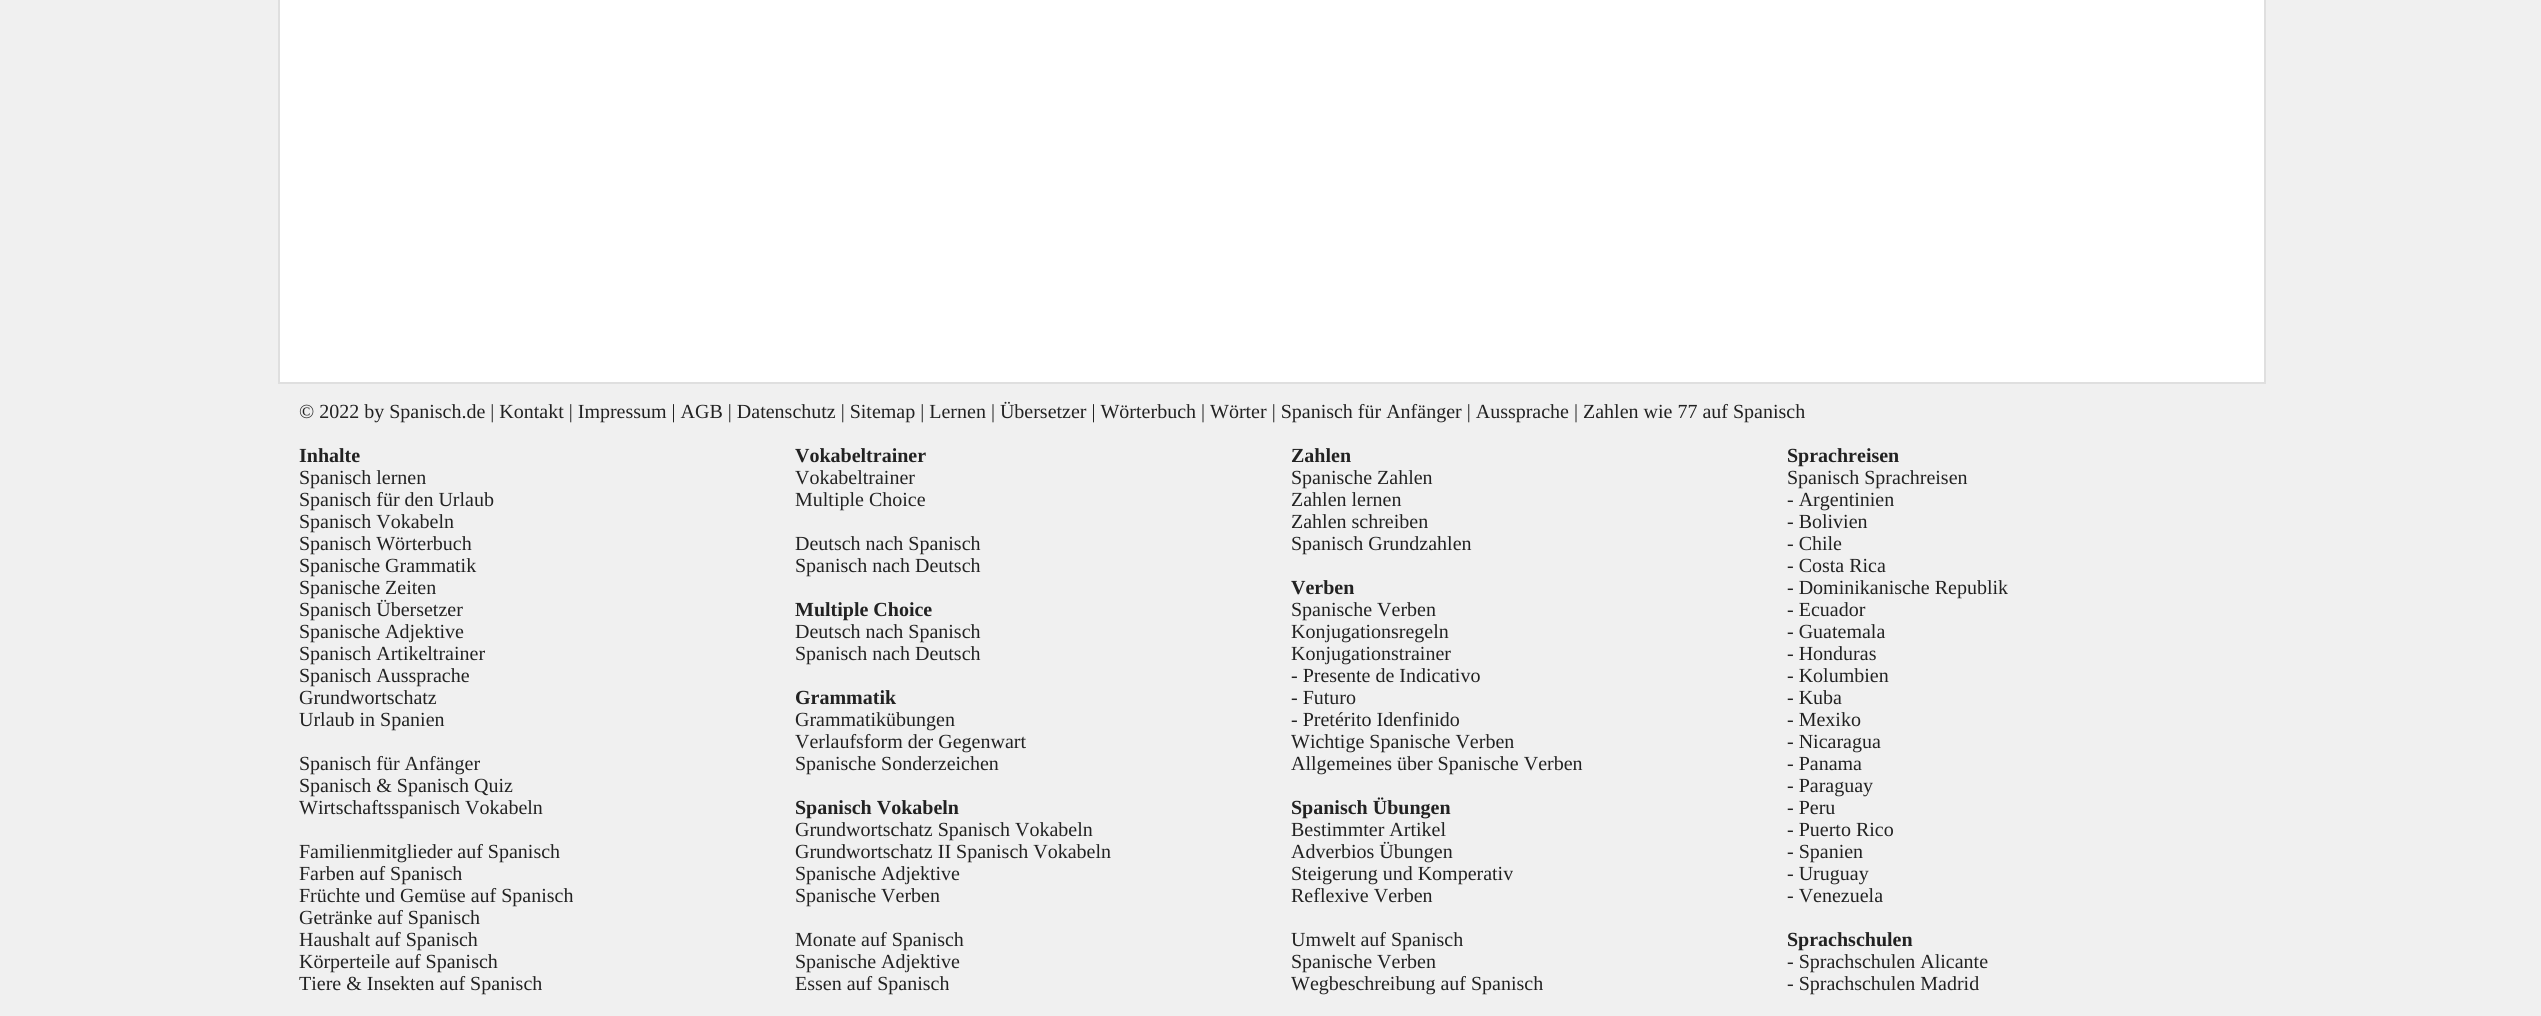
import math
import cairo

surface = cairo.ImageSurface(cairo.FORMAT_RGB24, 2541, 1016)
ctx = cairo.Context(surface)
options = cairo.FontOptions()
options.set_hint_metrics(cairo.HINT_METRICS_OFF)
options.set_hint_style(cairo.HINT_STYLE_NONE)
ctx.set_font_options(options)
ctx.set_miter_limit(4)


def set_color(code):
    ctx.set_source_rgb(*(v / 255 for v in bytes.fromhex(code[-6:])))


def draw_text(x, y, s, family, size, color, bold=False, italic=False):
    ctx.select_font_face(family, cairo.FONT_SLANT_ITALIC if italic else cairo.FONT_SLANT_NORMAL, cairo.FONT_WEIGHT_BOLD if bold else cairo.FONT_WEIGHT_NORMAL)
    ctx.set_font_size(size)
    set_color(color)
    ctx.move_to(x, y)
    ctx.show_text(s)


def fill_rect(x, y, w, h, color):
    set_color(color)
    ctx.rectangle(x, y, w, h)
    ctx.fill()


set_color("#f0f0f0")
ctx.paint()
fill_rect(280, 0, 1984, 382, "#ffffff")
fill_rect(2264, 0, 2, 384, "#dfdfdf")
fill_rect(278, 382, 1988, 2, "#dfdfdf")
fill_rect(278, 0, 2, 384, "#dfdfdf")
draw_text(299, 418, "© 2022 by Spanisch.de | Kontakt | Impressum | AGB | Datenschutz | Sitemap | Lernen | Übersetzer | Wörterbuch | Wörter | Spanisch für Anfänger | Aussprache | Zahlen wie 77 auf Spanisch", "Liberation Serif", 20, "#222222")
draw_text(299, 462, "Inhalte", "Liberation Serif", 20, "#222222", bold=True)
draw_text(299, 484, "Spanisch lernen", "Liberation Serif", 20, "#222222")
draw_text(299, 506, "Spanisch für den Urlaub", "Liberation Serif", 20, "#222222")
draw_text(299, 528, "Spanisch Vokabeln", "Liberation Serif", 20, "#222222")
draw_text(299, 550, "Spanisch Wörterbuch", "Liberation Serif", 20, "#222222")
draw_text(299, 572, "Spanische Grammatik", "Liberation Serif", 20, "#222222")
draw_text(299, 594, "Spanische Zeiten", "Liberation Serif", 20, "#222222")
draw_text(299, 616, "Spanisch Übersetzer", "Liberation Serif", 20, "#222222")
draw_text(299, 638, "Spanische Adjektive", "Liberation Serif", 20, "#222222")
draw_text(299, 660, "Spanisch Artikeltrainer", "Liberation Serif", 20, "#222222")
draw_text(299, 682, "Spanisch Aussprache", "Liberation Serif", 20, "#222222")
draw_text(299, 704, "Grundwortschatz", "Liberation Serif", 20, "#222222")
draw_text(299, 726, "Urlaub in Spanien", "Liberation Serif", 20, "#222222")
draw_text(299, 770, "Spanisch für Anfänger", "Liberation Serif", 20, "#222222")
draw_text(299, 792, "Spanisch & Spanisch Quiz", "Liberation Serif", 20, "#222222")
draw_text(299, 814, "Wirtschaftsspanisch Vokabeln", "Liberation Serif", 20, "#222222")
draw_text(299, 858, "Familienmitglieder auf Spanisch", "Liberation Serif", 20, "#222222")
draw_text(299, 880, "Farben auf Spanisch", "Liberation Serif", 20, "#222222")
draw_text(299, 902, "Früchte und Gemüse auf Spanisch", "Liberation Serif", 20, "#222222")
draw_text(299, 924, "Getränke auf Spanisch", "Liberation Serif", 20, "#222222")
draw_text(299, 946, "Haushalt auf Spanisch", "Liberation Serif", 20, "#222222")
draw_text(299, 968, "Körperteile auf Spanisch", "Liberation Serif", 20, "#222222")
draw_text(299, 990, "Tiere & Insekten auf Spanisch", "Liberation Serif", 20, "#222222")
draw_text(795, 462, "Vokabeltrainer", "Liberation Serif", 20, "#222222", bold=True)
draw_text(795, 484, "Vokabeltrainer", "Liberation Serif", 20, "#222222")
draw_text(795, 506, "Multiple Choice", "Liberation Serif", 20, "#222222")
draw_text(795, 550, "Deutsch nach Spanisch", "Liberation Serif", 20, "#222222")
draw_text(795, 572, "Spanisch nach Deutsch", "Liberation Serif", 20, "#222222")
draw_text(795, 616, "Multiple Choice", "Liberation Serif", 20, "#222222", bold=True)
draw_text(795, 638, "Deutsch nach Spanisch", "Liberation Serif", 20, "#222222")
draw_text(795, 660, "Spanisch nach Deutsch", "Liberation Serif", 20, "#222222")
draw_text(795, 704, "Grammatik", "Liberation Serif", 20, "#222222", bold=True)
draw_text(795, 726, "Grammatikübungen", "Liberation Serif", 20, "#222222")
draw_text(795, 748, "Verlaufsform der Gegenwart", "Liberation Serif", 20, "#222222")
draw_text(795, 770, "Spanische Sonderzeichen", "Liberation Serif", 20, "#222222")
draw_text(795, 814, "Spanisch Vokabeln", "Liberation Serif", 20, "#222222", bold=True)
draw_text(795, 836, "Grundwortschatz Spanisch Vokabeln", "Liberation Serif", 20, "#222222")
draw_text(795, 858, "Grundwortschatz II Spanisch Vokabeln", "Liberation Serif", 20, "#222222")
draw_text(795, 880, "Spanische Adjektive", "Liberation Serif", 20, "#222222")
draw_text(795, 902, "Spanische Verben", "Liberation Serif", 20, "#222222")
draw_text(795, 946, "Monate auf Spanisch", "Liberation Serif", 20, "#222222")
draw_text(795, 968, "Spanische Adjektive", "Liberation Serif", 20, "#222222")
draw_text(795, 990, "Essen auf Spanisch", "Liberation Serif", 20, "#222222")
draw_text(1291, 462, "Zahlen", "Liberation Serif", 20, "#222222", bold=True)
draw_text(1291, 484, "Spanische Zahlen", "Liberation Serif", 20, "#222222")
draw_text(1291, 506, "Zahlen lernen", "Liberation Serif", 20, "#222222")
draw_text(1291, 528, "Zahlen schreiben", "Liberation Serif", 20, "#222222")
draw_text(1291, 550, "Spanisch Grundzahlen", "Liberation Serif", 20, "#222222")
draw_text(1291, 594, "Verben", "Liberation Serif", 20, "#222222", bold=True)
draw_text(1291, 616, "Spanische Verben", "Liberation Serif", 20, "#222222")
draw_text(1291, 638, "Konjugationsregeln", "Liberation Serif", 20, "#222222")
draw_text(1291, 660, "Konjugationstrainer", "Liberation Serif", 20, "#222222")
draw_text(1291, 682, "- Presente de Indicativo", "Liberation Serif", 20, "#222222")
draw_text(1291, 704, "- Futuro", "Liberation Serif", 20, "#222222")
draw_text(1291, 726, "- Pretérito Idenfinido", "Liberation Serif", 20, "#222222")
draw_text(1291, 748, "Wichtige Spanische Verben", "Liberation Serif", 20, "#222222")
draw_text(1291, 770, "Allgemeines über Spanische Verben", "Liberation Serif", 20, "#222222")
draw_text(1291, 814, "Spanisch Übungen", "Liberation Serif", 20, "#222222", bold=True)
draw_text(1291, 836, "Bestimmter Artikel", "Liberation Serif", 20, "#222222")
draw_text(1291, 858, "Adverbios Übungen", "Liberation Serif", 20, "#222222")
draw_text(1291, 880, "Steigerung und Komperativ", "Liberation Serif", 20, "#222222")
draw_text(1291, 902, "Reflexive Verben", "Liberation Serif", 20, "#222222")
draw_text(1291, 946, "Umwelt auf Spanisch", "Liberation Serif", 20, "#222222")
draw_text(1291, 968, "Spanische Verben", "Liberation Serif", 20, "#222222")
draw_text(1291, 990, "Wegbeschreibung auf Spanisch", "Liberation Serif", 20, "#222222")
draw_text(1787, 462, "Sprachreisen", "Liberation Serif", 20, "#222222", bold=True)
draw_text(1787, 484, "Spanisch Sprachreisen", "Liberation Serif", 20, "#222222")
draw_text(1787, 506, "- Argentinien", "Liberation Serif", 20, "#222222")
draw_text(1787, 528, "- Bolivien", "Liberation Serif", 20, "#222222")
draw_text(1787, 550, "- Chile", "Liberation Serif", 20, "#222222")
draw_text(1787, 572, "- Costa Rica", "Liberation Serif", 20, "#222222")
draw_text(1787, 594, "- Dominikanische Republik", "Liberation Serif", 20, "#222222")
draw_text(1787, 616, "- Ecuador", "Liberation Serif", 20, "#222222")
draw_text(1787, 638, "- Guatemala", "Liberation Serif", 20, "#222222")
draw_text(1787, 660, "- Honduras", "Liberation Serif", 20, "#222222")
draw_text(1787, 682, "- Kolumbien", "Liberation Serif", 20, "#222222")
draw_text(1787, 704, "- Kuba", "Liberation Serif", 20, "#222222")
draw_text(1787, 726, "- Mexiko", "Liberation Serif", 20, "#222222")
draw_text(1787, 748, "- Nicaragua", "Liberation Serif", 20, "#222222")
draw_text(1787, 770, "- Panama", "Liberation Serif", 20, "#222222")
draw_text(1787, 792, "- Paraguay", "Liberation Serif", 20, "#222222")
draw_text(1787, 814, "- Peru", "Liberation Serif", 20, "#222222")
draw_text(1787, 836, "- Puerto Rico", "Liberation Serif", 20, "#222222")
draw_text(1787, 858, "- Spanien", "Liberation Serif", 20, "#222222")
draw_text(1787, 880, "- Uruguay", "Liberation Serif", 20, "#222222")
draw_text(1787, 902, "- Venezuela", "Liberation Serif", 20, "#222222")
draw_text(1787, 946, "Sprachschulen", "Liberation Serif", 20, "#222222", bold=True)
draw_text(1787, 968, "- Sprachschulen Alicante", "Liberation Serif", 20, "#222222")
draw_text(1787, 990, "- Sprachschulen Madrid", "Liberation Serif", 20, "#222222")
surface.write_to_png("output.png")
